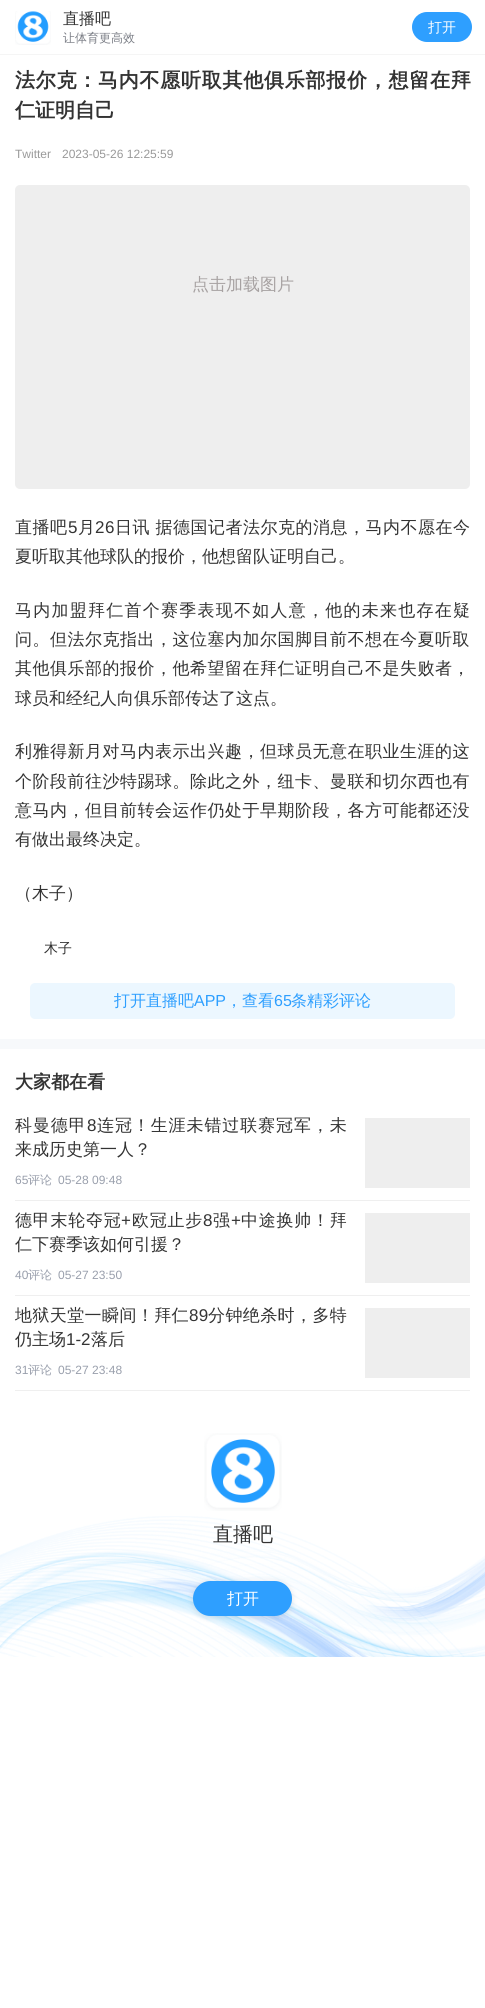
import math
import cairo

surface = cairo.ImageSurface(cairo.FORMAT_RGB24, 485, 2008)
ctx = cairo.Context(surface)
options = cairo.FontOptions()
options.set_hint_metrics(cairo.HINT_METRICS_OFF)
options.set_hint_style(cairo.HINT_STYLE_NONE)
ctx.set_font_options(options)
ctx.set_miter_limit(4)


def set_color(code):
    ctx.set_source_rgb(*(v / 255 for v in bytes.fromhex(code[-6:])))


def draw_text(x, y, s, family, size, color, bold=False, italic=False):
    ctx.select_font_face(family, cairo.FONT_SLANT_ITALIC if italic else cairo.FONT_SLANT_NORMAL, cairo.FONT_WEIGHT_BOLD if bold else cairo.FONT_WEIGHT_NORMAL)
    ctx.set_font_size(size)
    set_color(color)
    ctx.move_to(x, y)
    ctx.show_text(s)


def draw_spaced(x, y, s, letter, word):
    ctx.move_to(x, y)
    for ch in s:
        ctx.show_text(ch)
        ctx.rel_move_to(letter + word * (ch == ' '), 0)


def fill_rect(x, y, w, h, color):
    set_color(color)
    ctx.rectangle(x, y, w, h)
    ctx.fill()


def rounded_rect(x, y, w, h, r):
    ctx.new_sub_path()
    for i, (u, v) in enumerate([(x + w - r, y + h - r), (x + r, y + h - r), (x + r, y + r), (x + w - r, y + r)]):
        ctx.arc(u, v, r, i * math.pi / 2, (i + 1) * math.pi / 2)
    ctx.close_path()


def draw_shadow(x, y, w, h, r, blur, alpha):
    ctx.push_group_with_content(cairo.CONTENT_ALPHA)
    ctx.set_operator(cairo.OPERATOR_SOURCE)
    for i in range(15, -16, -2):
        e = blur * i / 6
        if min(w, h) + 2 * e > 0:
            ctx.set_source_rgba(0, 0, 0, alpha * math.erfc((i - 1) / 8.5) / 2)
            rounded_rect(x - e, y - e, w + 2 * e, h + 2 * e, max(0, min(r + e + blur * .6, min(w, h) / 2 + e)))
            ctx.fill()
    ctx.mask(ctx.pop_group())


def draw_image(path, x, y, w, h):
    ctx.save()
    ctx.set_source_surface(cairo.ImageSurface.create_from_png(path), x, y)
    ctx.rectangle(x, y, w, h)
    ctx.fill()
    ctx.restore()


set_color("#ffffff")
ctx.paint()
ctx.save()
ctx.rectangle(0, 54, 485, 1)
ctx.clip()
set_color("#000000")
draw_shadow(0, 1, 485, 54, 0, 1, 0.06)
ctx.restore()
draw_image("assets/img1.png", 15, 11, 36, 34)
draw_text(63, 24, "直播吧", "WenQuanYi Zen Hei Medium", 16, "#333333")
draw_text(63, 42, "让体育更高效", "WenQuanYi Zen Hei Medium", 12, "#7b7e86")
set_color("#2e9fff")
rounded_rect(412, 12, 60, 30, 15)
ctx.fill()
draw_text(428, 32, "打开", "WenQuanYi Zen Hei Medium", 14, "#ffffff")
ctx.select_font_face("WenQuanYi Zen Hei", cairo.FONT_SLANT_NORMAL, cairo.FONT_WEIGHT_BOLD)
ctx.set_font_size(20)
set_color("#333333")
draw_spaced(15, 87, "法尔克：马内不愿听取其他俱乐部报价，想留在拜", 0.75, 0)
draw_text(15, 117, "仁证明自己", "WenQuanYi Zen Hei", 20, "#333333", bold=True)
draw_text(15, 158, "Twitter", "Liberation Sans", 12, "#999999")
draw_text(62, 158, "2023-05-26 12:25:59", "Liberation Sans", 12, "#999999")
set_color("#eeeeee")
rounded_rect(15, 185, 455, 304, 5)
ctx.fill()
draw_text(192, 290, "点击加载图片", "WenQuanYi Zen Hei Medium", 17, "#a7a2a2")
set_color("#333333")
draw_spaced(15, 533, "直播吧", 0.5, 0)
ctx.select_font_face("Liberation Sans")
draw_spaced(68, 533, "5", 0.5, 0)
ctx.select_font_face("WenQuanYi Zen Hei Medium")
draw_spaced(78, 533, "月", 0.5, 0)
ctx.select_font_face("Liberation Sans")
draw_spaced(95, 533, "26", 0.5, 0)
ctx.select_font_face("WenQuanYi Zen Hei Medium")
draw_spaced(115, 533, "日讯 据德国记者法尔克的消息，马内不愿在今", 0.5, 0)
draw_text(15, 562, "夏听取其他球队的报价，他想留队证明自己。", "WenQuanYi Zen Hei Medium", 17, "#333333")
draw_spaced(15, 616, "马内加盟拜仁首个赛季表现不如人意，他的未来也存在疑", 1.25, 0)
draw_spaced(15, 645, "问。但法尔克指出，这位塞内加尔国脚目前不想在今夏听取", 0.5, 0)
draw_spaced(15, 674, "其他俱乐部的报价，他希望留在拜仁证明自己不是失败者，", 0.5, 0)
draw_text(15, 704, "球员和经纪人向俱乐部传达了这点。", "WenQuanYi Zen Hei Medium", 17, "#333333")
draw_spaced(15, 757, "利雅得新月对马内表示出兴趣，但球员无意在职业生涯的这", 0.5, 0)
draw_spaced(15, 787, "个阶段前往沙特踢球。除此之外，纽卡、曼联和切尔西也有", 0.5, 0)
draw_spaced(15, 816, "意马内，但目前转会运作仍处于早期阶段，各方可能都还没", 0.5, 0)
draw_text(15, 845, "有做出最终决定。", "WenQuanYi Zen Hei Medium", 17, "#333333")
draw_text(15, 899, "（木子）", "WenQuanYi Zen Hei Medium", 17, "#333333")
draw_text(44, 953, "木子", "WenQuanYi Zen Hei Medium", 14, "#333333")
set_color("#ecf7ff")
rounded_rect(30, 983, 425, 36, 5)
ctx.fill()
draw_text(114, 1006, "打开直播吧", "WenQuanYi Zen Hei Medium", 16, "#2e9fff")
draw_text(194, 1006, "APP", "Liberation Sans", 16, "#2e9fff")
draw_text(226, 1006, "，查看", "WenQuanYi Zen Hei Medium", 16, "#2e9fff")
draw_text(274, 1006, "65", "Liberation Sans", 16, "#2e9fff")
draw_text(291, 1006, "条精彩评论", "WenQuanYi Zen Hei Medium", 16, "#2e9fff")
fill_rect(0, 1039, 485, 10, "#f7f9fb")
draw_text(15, 1088, "大家都在看", "WenQuanYi Zen Hei", 18, "#333333", bold=True)
fill_rect(15, 1200, 455, 1, "#efefef")
ctx.select_font_face("WenQuanYi Zen Hei Medium")
ctx.set_font_size(17)
set_color("#333333")
draw_spaced(15, 1131, "科曼德甲", 0.9, 0)
ctx.select_font_face("Liberation Sans")
draw_spaced(87, 1131, "8", 0.9, 0)
ctx.select_font_face("WenQuanYi Zen Hei Medium")
draw_spaced(97, 1131, "连冠！生涯未错过联赛冠军，未", 0.9, 0)
draw_text(15, 1155, "来成历史第一人？", "WenQuanYi Zen Hei Medium", 17, "#333333")
draw_text(15, 1184, "65", "Liberation Sans", 12, "#999fac")
draw_text(28, 1184, "评论", "WenQuanYi Zen Hei Medium", 12, "#999fac")
draw_text(58, 1184, "05-28 09:48", "Liberation Sans", 12, "#999fac")
fill_rect(365, 1118, 105, 70, "#eeeeee")
fill_rect(15, 1295, 455, 1, "#efefef")
ctx.select_font_face("WenQuanYi Zen Hei Medium")
ctx.set_font_size(17)
set_color("#333333")
draw_spaced(15, 1226, "德甲末轮夺冠", 0.75, 0)
ctx.select_font_face("Liberation Sans")
draw_spaced(121, 1226, "+", 0.75, 0)
ctx.select_font_face("WenQuanYi Zen Hei Medium")
draw_spaced(132, 1226, "欧冠止步", 0.75, 0)
ctx.select_font_face("Liberation Sans")
draw_spaced(203, 1226, "8", 0.75, 0)
ctx.select_font_face("WenQuanYi Zen Hei Medium")
draw_spaced(213, 1226, "强", 0.75, 0)
ctx.select_font_face("Liberation Sans")
draw_spaced(231, 1226, "+", 0.75, 0)
ctx.select_font_face("WenQuanYi Zen Hei Medium")
draw_spaced(241, 1226, "中途换帅！拜", 0.75, 0)
draw_text(15, 1250, "仁下赛季该如何引援？", "WenQuanYi Zen Hei Medium", 17, "#333333")
draw_text(15, 1279, "40", "Liberation Sans", 12, "#999fac")
draw_text(28, 1279, "评论", "WenQuanYi Zen Hei Medium", 12, "#999fac")
draw_text(58, 1279, "05-27 23:50", "Liberation Sans", 12, "#999fac")
fill_rect(365, 1213, 105, 70, "#eeeeee")
fill_rect(15, 1390, 455, 1, "#efefef")
ctx.select_font_face("WenQuanYi Zen Hei Medium")
ctx.set_font_size(17)
set_color("#333333")
draw_spaced(15, 1321, "地狱天堂一瞬间！拜仁", 0.4, 0)
ctx.select_font_face("Liberation Sans")
draw_spaced(189, 1321, "89", 0.4, 0)
ctx.select_font_face("WenQuanYi Zen Hei Medium")
draw_spaced(208, 1321, "分钟绝杀时，多特", 0.4, 0)
draw_text(15, 1345, "仍主场", "WenQuanYi Zen Hei Medium", 17, "#333333")
draw_text(66, 1345, "1-2", "Liberation Sans", 17, "#333333")
draw_text(91, 1345, "落后", "WenQuanYi Zen Hei Medium", 17, "#333333")
draw_text(15, 1374, "31", "Liberation Sans", 12, "#999fac")
draw_text(28, 1374, "评论", "WenQuanYi Zen Hei Medium", 12, "#999fac")
draw_text(58, 1374, "05-27 23:48", "Liberation Sans", 12, "#999fac")
fill_rect(365, 1308, 105, 70, "#eeeeee")
draw_image("assets/img2.png", 0, 1516, 485, 141)
draw_image("assets/img3.png", 204, 1433, 78, 78)
draw_text(213, 1541, "直播吧", "WenQuanYi Zen Hei Medium", 20, "#333333")
set_color("#999fac")
draw_shadow(193, 1582, 99, 35, 17.5, 3, 0.3)
set_color("#2e9fff")
rounded_rect(193, 1581, 99, 35, 17.5)
ctx.fill()
draw_text(227, 1604, "打开", "WenQuanYi Zen Hei Medium", 16, "#ffffff")
surface.write_to_png("output.png")
